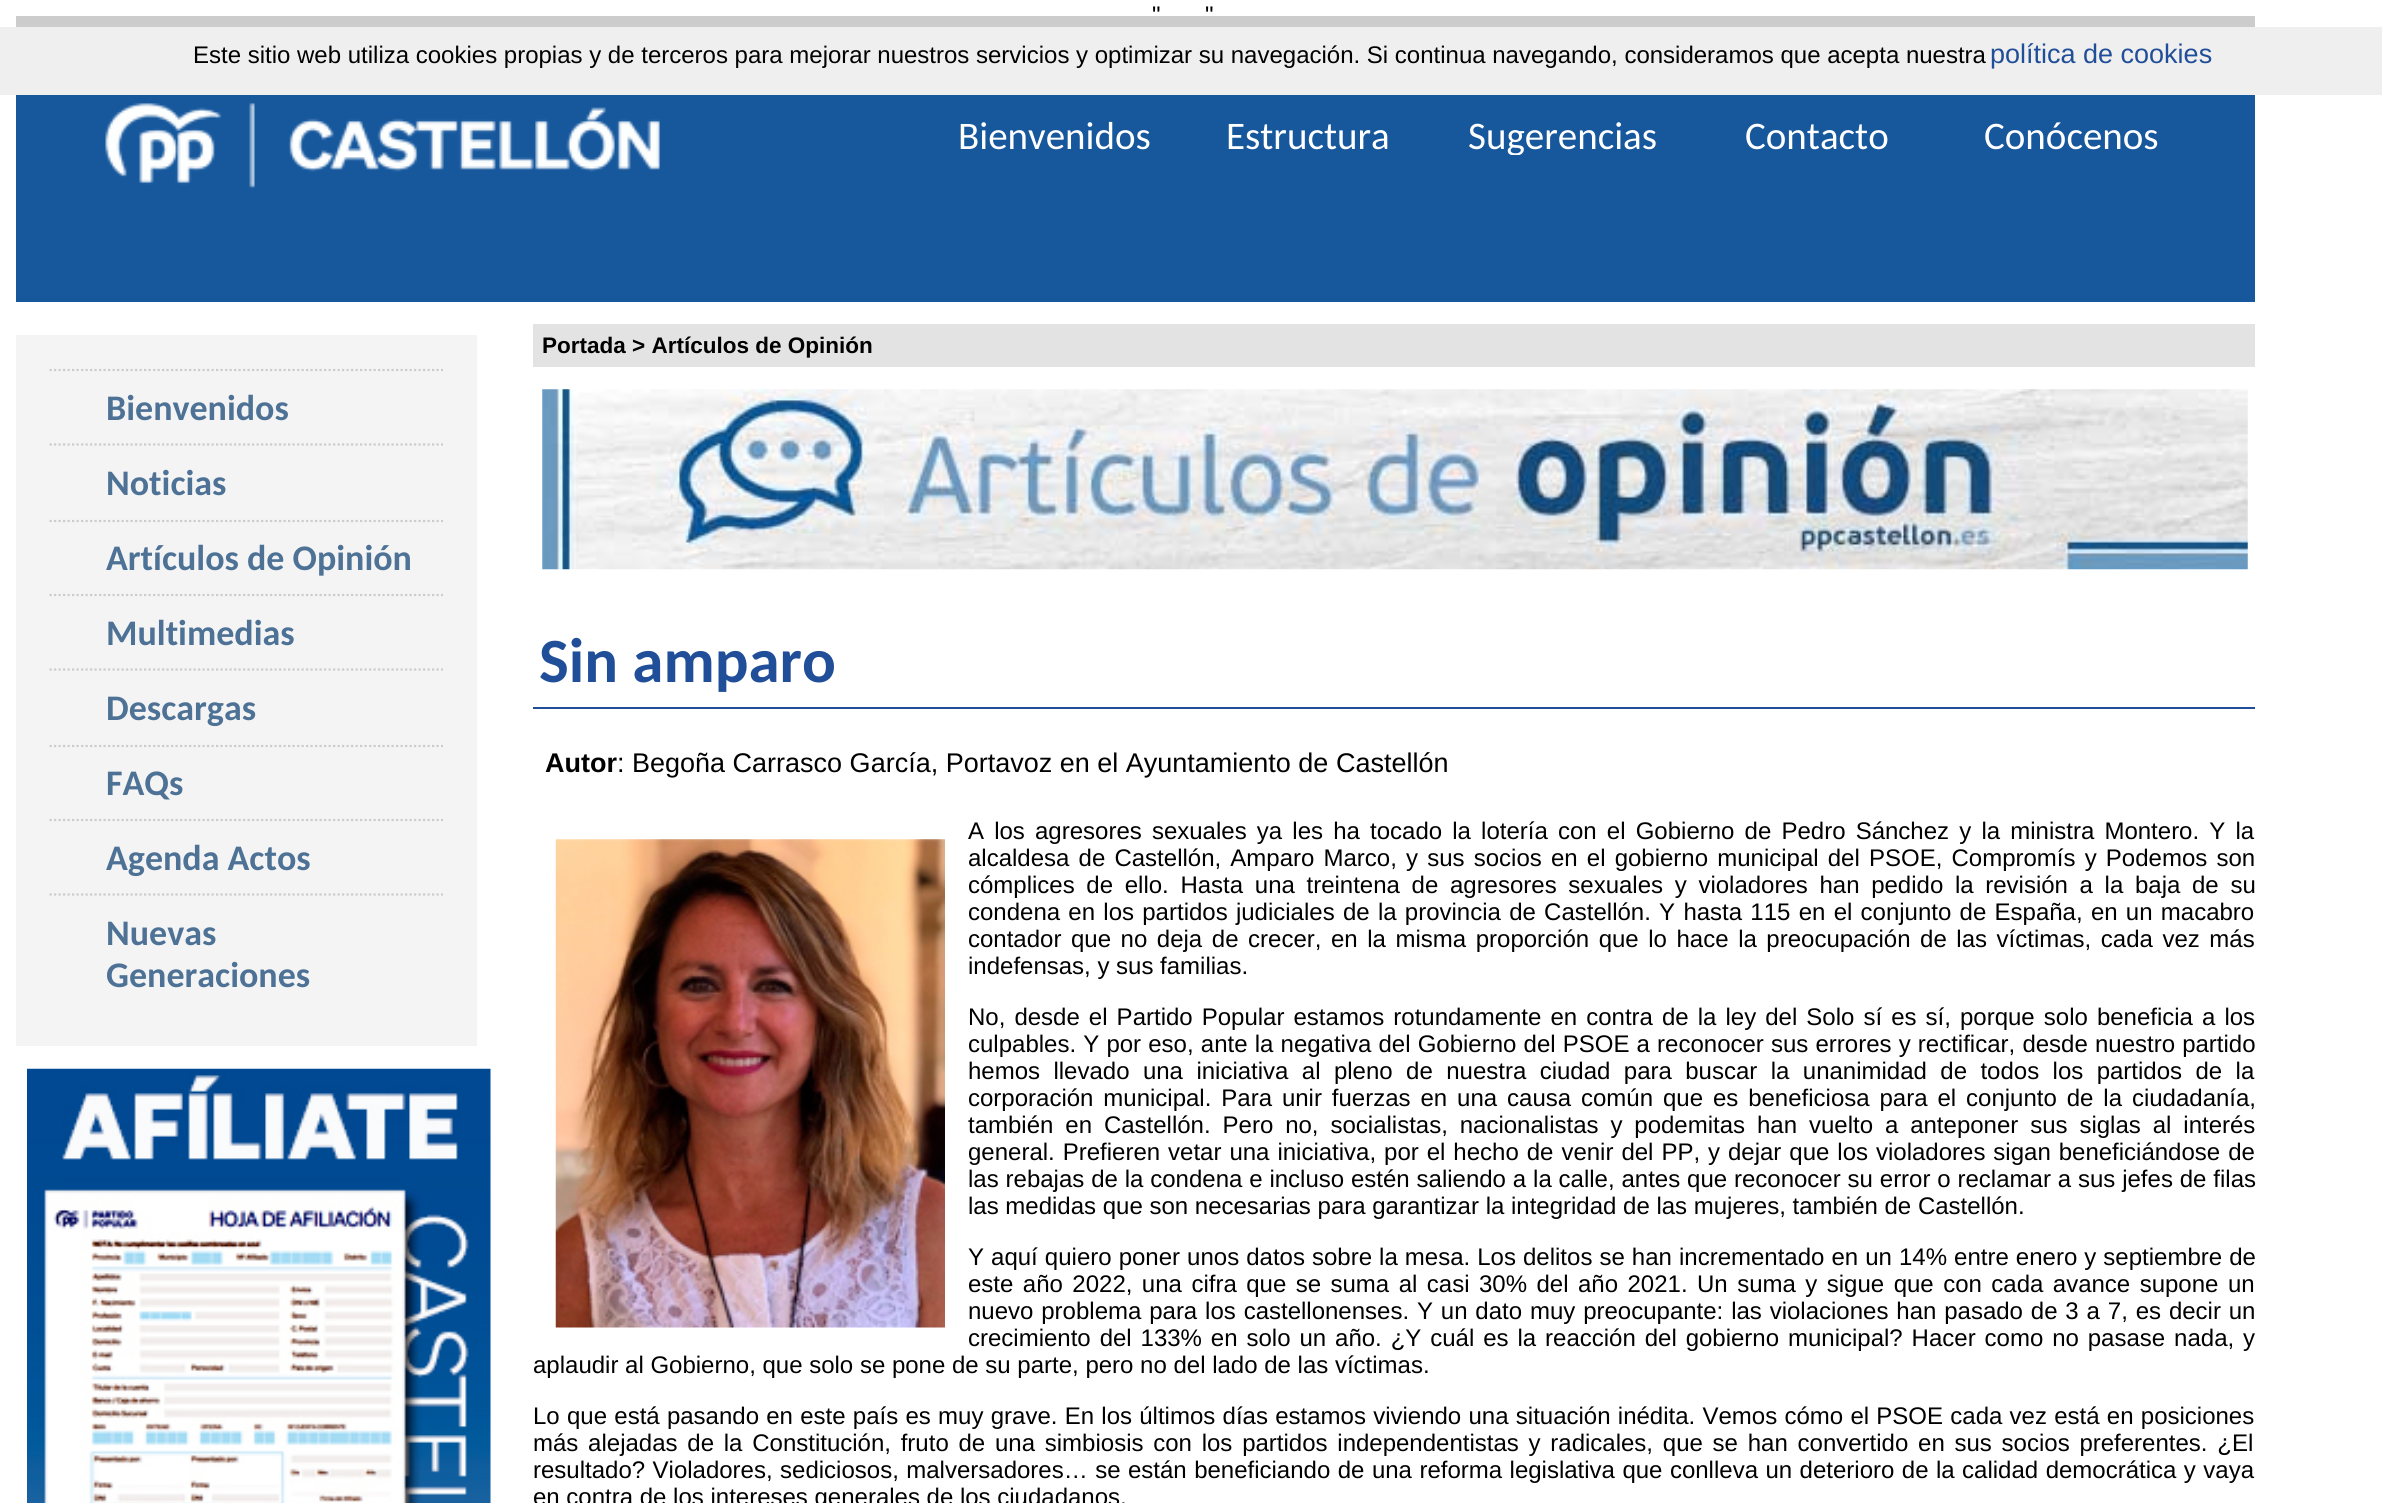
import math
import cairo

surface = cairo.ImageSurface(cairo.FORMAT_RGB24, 2382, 1503)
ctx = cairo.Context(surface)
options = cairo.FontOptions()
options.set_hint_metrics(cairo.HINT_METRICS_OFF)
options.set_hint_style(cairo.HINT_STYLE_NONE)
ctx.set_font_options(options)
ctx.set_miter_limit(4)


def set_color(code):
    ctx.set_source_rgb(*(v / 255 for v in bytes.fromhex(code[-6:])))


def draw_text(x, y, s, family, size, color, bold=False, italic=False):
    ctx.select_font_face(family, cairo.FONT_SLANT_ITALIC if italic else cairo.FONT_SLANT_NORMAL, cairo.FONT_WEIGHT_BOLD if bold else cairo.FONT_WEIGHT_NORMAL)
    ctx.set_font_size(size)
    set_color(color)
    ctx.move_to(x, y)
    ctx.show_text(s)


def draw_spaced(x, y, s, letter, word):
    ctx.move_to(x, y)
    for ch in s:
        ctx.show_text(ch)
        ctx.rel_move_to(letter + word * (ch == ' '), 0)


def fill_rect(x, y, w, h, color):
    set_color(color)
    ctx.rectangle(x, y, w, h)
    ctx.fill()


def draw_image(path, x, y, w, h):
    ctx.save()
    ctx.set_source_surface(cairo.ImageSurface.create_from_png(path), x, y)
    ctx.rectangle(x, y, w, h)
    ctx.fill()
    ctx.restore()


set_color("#ffffff")
ctx.paint()
draw_text(1152, 23, "\"", "Liberation Sans", 24, "#000000")
draw_text(1205, 23, "\"", "Liberation Sans", 24, "#000000")
fill_rect(0, 27, 2382, 68, "#efefef")
draw_text(193, 63, "Este sitio web utiliza cookies propias y de terceros para mejorar nuestros servicios y optimizar su navegación. Si continua navegando, consideramos que acepta nuestra", "Liberation Sans", 24, "#000000")
draw_text(1990, 63, "política de cookies", "Liberation Sans", 27, "#204e99")
fill_rect(16, 16, 2239, 11, "#cccccc")
fill_rect(16, 95, 2239, 207, "#17589d")
draw_image("assets/img1.png", 105, 103, 555, 85)
draw_text(958, 149, "Bienvenidos", "Carlito", 39, "#ffffff")
draw_text(1226, 149, "Estructura", "Carlito", 39, "#ffffff")
ctx.save()
ctx.rectangle(1436, 88, 254, 67)
ctx.clip()
draw_text(1468, 149, "Sugerencias", "Carlito", 39, "#ffffff")
ctx.restore()
draw_text(1745, 149, "Contacto", "Carlito", 39, "#ffffff")
draw_text(1984, 149, "Conócenos", "Carlito", 39, "#ffffff")
fill_rect(16, 335, 461, 711, "#f4f4f4")
ctx.new_path()
ctx.move_to(49.5, 370)
ctx.line_to(443, 370)
set_color("#cccccc")
ctx.set_line_width(2.2)
ctx.set_dash([2.25, 2.25])
ctx.stroke()
draw_text(106, 420, "Bienvenidos", "Carlito", 36, "#4e7296", bold=True)
ctx.new_path()
ctx.move_to(49.5, 444.5)
ctx.line_to(443, 444.5)
set_color("#cccccc")
ctx.stroke()
draw_text(106, 495, "Noticias", "Carlito", 36, "#4e7296", bold=True)
ctx.new_path()
ctx.move_to(49.5, 521)
ctx.line_to(443, 521)
set_color("#cccccc")
ctx.stroke()
draw_text(106, 570, "Artículos de Opinión", "Carlito", 36, "#4e7296", bold=True)
ctx.new_path()
ctx.move_to(49.5, 595)
ctx.line_to(443, 595)
set_color("#cccccc")
ctx.stroke()
draw_text(106, 645, "Multimedias", "Carlito", 36, "#4e7296", bold=True)
ctx.new_path()
ctx.move_to(49.5, 669.5)
ctx.line_to(443, 669.5)
set_color("#cccccc")
ctx.stroke()
draw_text(106, 720, "Descargas", "Carlito", 36, "#4e7296", bold=True)
ctx.new_path()
ctx.move_to(49.5, 746)
ctx.line_to(443, 746)
set_color("#cccccc")
ctx.stroke()
draw_text(106, 795, "FAQs", "Carlito", 36, "#4e7296", bold=True)
ctx.new_path()
ctx.move_to(49.5, 820)
ctx.line_to(443, 820)
set_color("#cccccc")
ctx.stroke()
draw_text(106, 870, "Agenda Actos", "Carlito", 36, "#4e7296", bold=True)
ctx.new_path()
ctx.move_to(49.5, 894.5)
ctx.line_to(443, 894.5)
set_color("#cccccc")
ctx.stroke()
draw_text(106, 945, "Nuevas", "Carlito", 36, "#4e7296", bold=True)
draw_text(106, 987, "Generaciones", "Carlito", 36, "#4e7296", bold=True)
draw_image("assets/img2.png", 27, 1068, 464, 435)
fill_rect(533, 324, 1722, 43, "#e3e3e3")
draw_text(542, 353, "Portada > Artículos de Opinión", "Liberation Sans", 22.5, "#000000", bold=True)
draw_image("assets/img3.png", 542, 389, 1706, 181)
fill_rect(533, 707, 1722, 2, "#204e99")
draw_text(539, 682, "Sin amparo", "Carlito", 63, "#204e99", bold=True)
draw_text(545, 772, "Autor", "Liberation Sans", 27, "#000000", bold=True)
draw_text(617, 772, ": Begoña Carrasco García, Portavoz en el Ayuntamiento de Castellón", "Liberation Sans", 27, "#000000")
ctx.set_font_size(24)
draw_spaced(968, 839, "A los agresores sexuales ya les ha tocado la lotería con el Gobierno de Pedro Sánchez y la ministra Montero. Y la", 0, 3.5)
draw_image("assets/img4.png", 555, 839, 390, 489)
draw_spaced(968, 866, "alcaldesa de Castellón, Amparo Marco, y sus socios en el gobierno municipal del PSOE, Compromís y Podemos son", 0, 2.5)
draw_spaced(968, 893, "cómplices de ello. Hasta una treintena de agresores sexuales y violadores han pedido la revisión a la baja de su", 0, 5)
draw_spaced(968, 920, "condena en los partidos judiciales de la provincia de Castellón. Y hasta 115 en el conjunto de España, en un macabro", 0, 1.6)
draw_spaced(968, 947, "contador que no deja de crecer, en la misma proporción que lo hace la preocupación de las víctimas, cada vez más", 0, 2.9)
draw_text(968, 974, "indefensas, y sus familias.", "Liberation Sans", 24, "#000000")
draw_spaced(968, 1025, "No, desde el Partido Popular estamos rotundamente en contra de la ley del Solo sí es sí, porque solo beneficia a los", 0, 2.4)
draw_spaced(968, 1052, "culpables. Y por eso, ante la negativa del Gobierno del PSOE a reconocer sus errores y rectificar, desde nuestro partido", 0, 0.5)
draw_spaced(968, 1079, "hemos llevado una iniciativa al pleno de nuestra ciudad para buscar la unanimidad de todos los partidos de la", 0, 6.75)
draw_spaced(968, 1106, "corporación municipal. Para unir fuerzas en una causa común que es beneficiosa para el conjunto de la ciudadanía,", 0, 3.25)
draw_spaced(968, 1133, "también en Castellón. Pero no, socialistas, nacionalistas y podemitas han vuelto a anteponer sus siglas al interés", 0, 5.25)
draw_spaced(968, 1160, "general. Prefieren vetar una iniciativa, por el hecho de venir del PP, y dejar que los violadores sigan beneficiándose de", 0, 1.3)
draw_spaced(968, 1187, "las rebajas de la condena e incluso estén saliendo a la calle, antes que reconocer su error o reclamar a sus jefes de filas", 0, 0.2)
draw_text(968, 1214, "las medidas que son necesarias para garantizar la integridad de las mujeres, también de Castellón.", "Liberation Sans", 24, "#000000")
draw_spaced(968, 1265, "Y aquí quiero poner unos datos sobre la mesa. Los delitos se han incrementado en un 14% entre enero y septiembre de", 0, 0.4)
draw_spaced(968, 1292, "este año 2022, una cifra que se suma al casi 30% del año 2021. Un suma y sigue que con cada avance supone un", 0, 2.8)
draw_spaced(968, 1319, "nuevo problema para los castellonenses. Y un dato muy preocupante: las violaciones han pasado de 3 a 7, es decir un", 0, 1.2)
draw_spaced(968, 1346, "crecimiento del 133% en solo un año. ¿Y cuál es la reacción del gobierno municipal? Hacer como no pasase nada, y", 0, 2.25)
draw_text(533, 1373, "aplaudir al Gobierno, que solo se pone de su parte, pero no del lado de las víctimas.", "Liberation Sans", 24, "#000000")
draw_spaced(533, 1424, "Lo que está pasando en este país es muy grave. En los últimos días estamos viviendo una situación inédita. Vemos cómo el PSOE cada vez está en posiciones", 0, 0.6)
draw_spaced(533, 1451, "más alejadas de la Constitución, fruto de una simbiosis con los partidos independentistas y radicales, que se han convertido en sus socios preferentes. ¿El", 0, 3.1)
draw_spaced(533, 1478, "resultado? Violadores, sediciosos, malversadores… se están beneficiando de una reforma legislativa que conlleva un deterioro de la calidad democrática y vaya", 0, 0.8)
draw_text(533, 1505, "en contra de los intereses generales de los ciudadanos.", "Liberation Sans", 24, "#000000")
surface.write_to_png("output.png")
